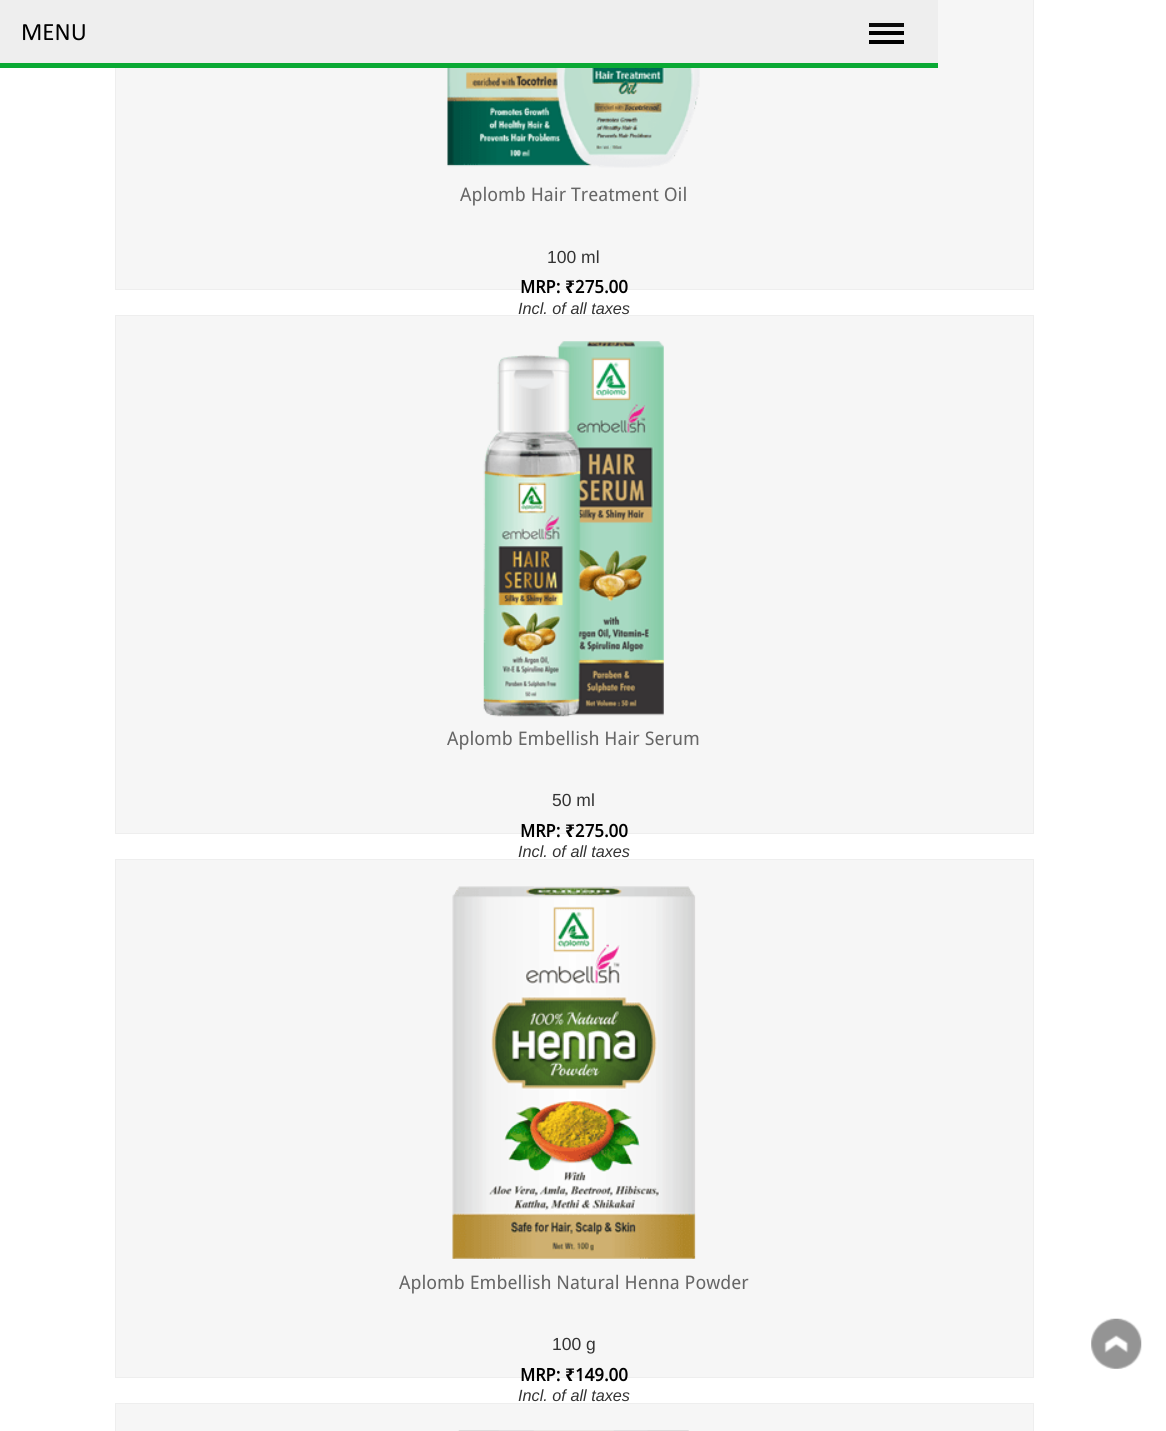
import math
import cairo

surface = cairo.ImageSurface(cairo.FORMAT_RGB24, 1166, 1431)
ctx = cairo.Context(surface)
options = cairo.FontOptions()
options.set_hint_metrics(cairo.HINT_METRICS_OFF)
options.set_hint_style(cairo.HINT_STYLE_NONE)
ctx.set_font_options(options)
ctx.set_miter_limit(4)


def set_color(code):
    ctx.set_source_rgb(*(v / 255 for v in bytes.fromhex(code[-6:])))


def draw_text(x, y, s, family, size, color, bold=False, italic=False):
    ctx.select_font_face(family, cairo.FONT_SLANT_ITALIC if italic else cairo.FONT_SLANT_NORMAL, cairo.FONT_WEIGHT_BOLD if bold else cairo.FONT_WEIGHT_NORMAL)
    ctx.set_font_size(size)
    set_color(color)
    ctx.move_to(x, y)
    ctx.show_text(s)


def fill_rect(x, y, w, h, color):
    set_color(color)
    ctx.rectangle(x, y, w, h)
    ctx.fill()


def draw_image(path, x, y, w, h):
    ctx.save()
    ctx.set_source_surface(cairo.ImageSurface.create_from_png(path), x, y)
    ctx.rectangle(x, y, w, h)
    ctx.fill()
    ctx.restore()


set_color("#ffffff")
ctx.paint()
set_color("#f6f6f6")
ctx.rectangle(115.5, -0.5, 918, 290)
ctx.fill_preserve()
set_color("#eeeeee")
ctx.set_line_width(1)
ctx.stroke()
fill_rect(0, 0, 938, 63, "#eeeeee")
fill_rect(0, 63, 938, 5, "#0aa934")
draw_text(21, 40, "MENU", "Calibri", 25, "#000000")
fill_rect(869, 23, 35, 4, "#0c0c0c")
fill_rect(869, 31, 35, 4, "#000000")
fill_rect(869, 40, 35, 4, "#000000")
draw_image("assets/img1.png", 447, 68, 253, 100)
draw_text(460, 201, "Aplomb Hair Treatment Oil", "Droid Sans", 18.75, "#666666")
draw_text(547, 263, "100 ml", "Liberation Sans", 17.5, "#333333")
draw_text(520, 293, "MRP:", "Droid Sans", 17.5, "#000000", bold=True)
draw_text(565, 293, "₹", "Noto Sans", 17.5, "#000000", bold=True)
draw_text(575, 293, "275.00", "Droid Sans", 17.5, "#000000", bold=True)
draw_text(518, 314, "Incl. of all taxes", "Liberation Sans", 16.25, "#333333", italic=True)
set_color("#f6f6f6")
ctx.rectangle(115.5, 315.5, 918, 518)
ctx.fill_preserve()
set_color("#eeeeee")
ctx.stroke()
draw_image("assets/img2.png", 483, 341, 181, 376)
draw_text(447, 745, "Aplomb Embellish Hair Serum", "Droid Sans", 18.75, "#666666")
draw_text(552, 806, "50 ml", "Liberation Sans", 17.5, "#333333")
draw_text(520, 837, "MRP:", "Droid Sans", 17.5, "#000000", bold=True)
draw_text(565, 837, "₹", "Noto Sans", 17.5, "#000000", bold=True)
draw_text(575, 837, "275.00", "Droid Sans", 17.5, "#000000", bold=True)
draw_text(518, 857, "Incl. of all taxes", "Liberation Sans", 16.25, "#333333", italic=True)
set_color("#f6f6f6")
ctx.rectangle(115.5, 859.5, 918, 518)
ctx.fill_preserve()
set_color("#eeeeee")
ctx.stroke()
draw_image("assets/img3.png", 452, 886, 244, 373)
draw_text(399, 1289, "Aplomb Embellish Natural Henna Powder", "Droid Sans", 18.75, "#666666")
draw_text(552, 1350, "100 g", "Liberation Sans", 17.5, "#333333")
draw_text(520, 1381, "MRP:", "Droid Sans", 17.5, "#000000", bold=True)
draw_text(565, 1381, "₹", "Noto Sans", 17.5, "#000000", bold=True)
draw_text(575, 1381, "149.00", "Droid Sans", 17.5, "#000000", bold=True)
draw_text(518, 1401, "Incl. of all taxes", "Liberation Sans", 16.25, "#333333", italic=True)
set_color("#f6f6f6")
ctx.rectangle(115.5, 1403.5, 918, 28)
ctx.fill_preserve()
set_color("#eeeeee")
ctx.stroke()
draw_image("assets/img4.png", 458, 1430, 231, 1)
draw_image("assets/img5.png", 1091, 1318, 51, 51)
surface.write_to_png("output.png")
